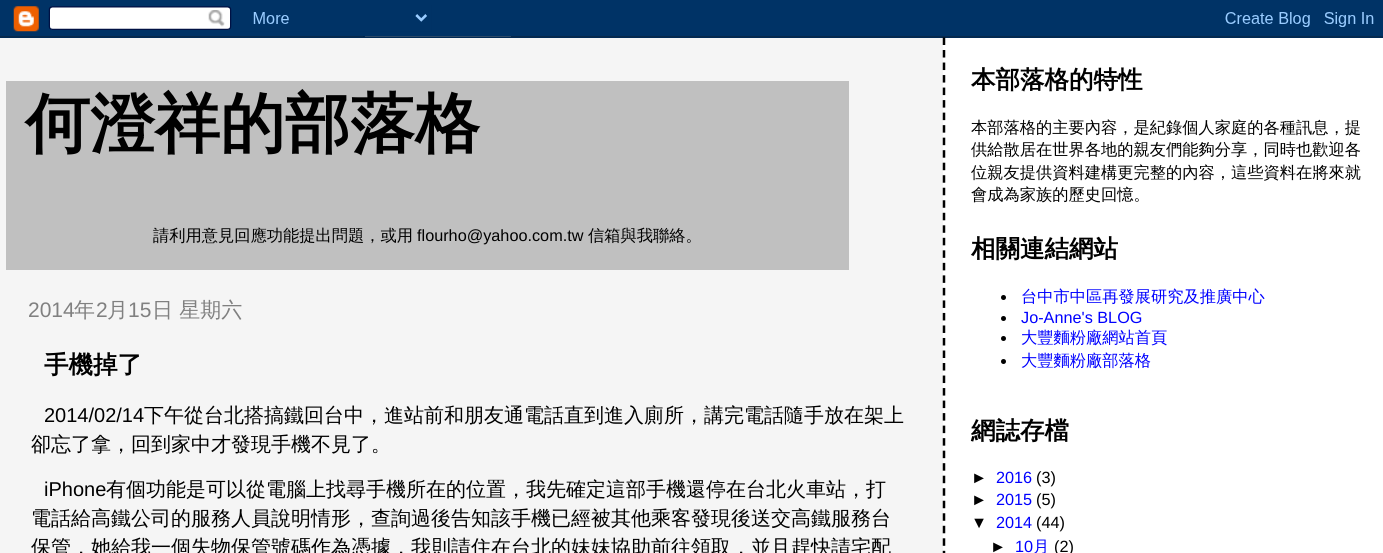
import math
import cairo

surface = cairo.ImageSurface(cairo.FORMAT_RGB24, 1383, 553)
ctx = cairo.Context(surface)
options = cairo.FontOptions()
options.set_hint_metrics(cairo.HINT_METRICS_OFF)
options.set_hint_style(cairo.HINT_STYLE_NONE)
ctx.set_font_options(options)
ctx.set_miter_limit(4)


def set_color(code):
    ctx.set_source_rgb(*(v / 255 for v in bytes.fromhex(code[-6:])))


def draw_text(x, y, s, family, size, color, bold=False, italic=False):
    ctx.select_font_face(family, cairo.FONT_SLANT_ITALIC if italic else cairo.FONT_SLANT_NORMAL, cairo.FONT_WEIGHT_BOLD if bold else cairo.FONT_WEIGHT_NORMAL)
    ctx.set_font_size(size)
    set_color(color)
    ctx.move_to(x, y)
    ctx.show_text(s)


def fill_rect(x, y, w, h, color):
    set_color(color)
    ctx.rectangle(x, y, w, h)
    ctx.fill()


def draw_image(path, x, y, w, h):
    ctx.save()
    ctx.set_source_surface(cairo.ImageSurface.create_from_png(path), x, y)
    ctx.rectangle(x, y, w, h)
    ctx.fill()
    ctx.restore()


set_color("#f5f5f5")
ctx.paint()
draw_image("assets/img1.png", 0, 0, 1383, 38)
fill_rect(6, 81, 843, 189, "#c0c0c0")
draw_text(25, 146, "何澄祥的部落格", "WenQuanYi Zen Hei", 65, "#000000", bold=True)
draw_text(153, 241, "請利用意見回應功能提出問題，或用", "WenQuanYi Zen Hei Medium", 16.25, "#000000")
draw_text(417, 241, "flourho@yahoo.com.tw", "Liberation Sans", 16.25, "#000000")
draw_text(588, 241, "信箱與我聯絡。", "WenQuanYi Zen Hei Medium", 16.25, "#000000")
draw_text(28, 317, "2014", "Liberation Sans", 21, "#808080")
draw_text(74, 317, "年", "WenQuanYi Zen Hei Medium", 21, "#808080")
draw_text(96, 317, "2", "Liberation Sans", 21, "#808080")
draw_text(107, 317, "月", "WenQuanYi Zen Hei Medium", 21, "#808080")
draw_text(128, 317, "15", "Liberation Sans", 21, "#808080")
draw_text(152, 317, "日 星期六", "WenQuanYi Zen Hei Medium", 21, "#808080")
draw_text(44, 373, "手機掉了", "WenQuanYi Zen Hei", 24.5, "#000000", bold=True)
draw_text(44, 422, "2014/02/14", "Liberation Sans", 20, "#000000")
draw_text(144, 422, "下午從台北搭搞鐵回台中，進站前和朋友通電話直到進入廁所，講完電話隨手放在架上", "WenQuanYi Zen Hei Medium", 20, "#000000")
draw_text(31, 451, "卻忘了拿，回到家中才發現手機不見了。", "WenQuanYi Zen Hei Medium", 20, "#000000")
draw_text(44, 496, "iPhone", "Liberation Sans", 20, "#000000")
draw_text(106, 496, "有個功能是可以從電腦上找尋手機所在的位置，我先確定這部手機還停在台北火車站，打", "WenQuanYi Zen Hei Medium", 20, "#000000")
draw_text(31, 525, "電話給高鐵公司的服務人員說明情形，查詢過後告知該手機已經被其他乘客發現後送交高鐵服務台", "WenQuanYi Zen Hei Medium", 20, "#000000")
draw_text(31, 554, "保管，她給我一個失物保管號碼作為憑據，我則請住在台北的妹妹協助前往領取，並且趕快請宅配", "WenQuanYi Zen Hei Medium", 20, "#000000")
fill_rect(943, 38, 440, 515, "#ffffff")
ctx.new_path()
ctx.move_to(944, 37.5)
ctx.line_to(944, 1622.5)
set_color("#000000")
ctx.set_line_width(2.5)
ctx.set_dash([7.5, 5.02])
ctx.stroke()
draw_text(971, 88, "本部落格的特性", "WenQuanYi Zen Hei", 24.5, "#000000", bold=True)
draw_text(971, 133, "本部落格的主要內容，是紀錄個人家庭的各種訊息，提", "WenQuanYi Zen Hei Medium", 16.25, "#000000")
draw_text(971, 155, "供給散居在世界各地的親友們能夠分享，同時也歡迎各", "WenQuanYi Zen Hei Medium", 16.25, "#000000")
draw_text(971, 178, "位親友提供資料建構更完整的內容，這些資料在將來就", "WenQuanYi Zen Hei Medium", 16.25, "#000000")
draw_text(971, 200, "會成為家族的歷史回憶。", "WenQuanYi Zen Hei Medium", 16.25, "#000000")
draw_text(971, 257, "相關連結網站", "WenQuanYi Zen Hei", 24.5, "#000000", bold=True)
ctx.new_path()
ctx.arc(1003.5, 297.5, 2.5, 0, 2 * math.pi)
ctx.fill()
draw_text(1021, 302, "台中市中區再發展研究及推廣中心", "WenQuanYi Zen Hei Medium", 16.25, "#0000ff")
set_color("#000000")
ctx.new_path()
ctx.arc(1003.5, 318.5, 2.5, 0, 2 * math.pi)
ctx.fill()
draw_text(1021, 323, "Jo-Anne's BLOG", "Liberation Sans", 16.25, "#0000ff")
set_color("#000000")
ctx.new_path()
ctx.arc(1003.5, 338.5, 2.5, 0, 2 * math.pi)
ctx.fill()
draw_text(1021, 343, "大豐麵粉廠網站首頁", "WenQuanYi Zen Hei Medium", 16.25, "#0000ff")
set_color("#000000")
ctx.new_path()
ctx.arc(1003.5, 361.5, 2.5, 0, 2 * math.pi)
ctx.fill()
draw_text(1021, 366, "大豐麵粉廠部落格", "WenQuanYi Zen Hei Medium", 16.25, "#0000ff")
draw_text(971, 439, "網誌存檔", "WenQuanYi Zen Hei", 24.5, "#000000", bold=True)
draw_text(971, 483, "►", "Liberation Sans", 16.25, "#000000")
draw_text(996, 483, "2016", "Liberation Sans", 16.25, "#0000ff")
draw_text(1036, 483, "(3)", "Liberation Sans", 16.25, "#000000")
draw_text(971, 505, "►", "Liberation Sans", 16.25, "#000000")
draw_text(996, 505, "2015", "Liberation Sans", 16.25, "#0000ff")
draw_text(1036, 505, "(5)", "Liberation Sans", 16.25, "#000000")
draw_text(971, 528, "▼", "Liberation Sans", 16.25, "#000000")
draw_text(996, 528, "2014", "Liberation Sans", 16.25, "#0000ff")
draw_text(1036, 528, "(44)", "Liberation Sans", 16.25, "#000000")
draw_text(990, 552, "►", "Liberation Sans", 16.25, "#000000")
draw_text(1015, 552, "10", "Liberation Sans", 16.25, "#0000ff")
draw_text(1033, 552, "月", "WenQuanYi Zen Hei Medium", 16.25, "#0000ff")
draw_text(1054, 552, "(2)", "Liberation Sans", 16.25, "#000000")
surface.write_to_png("output.png")
